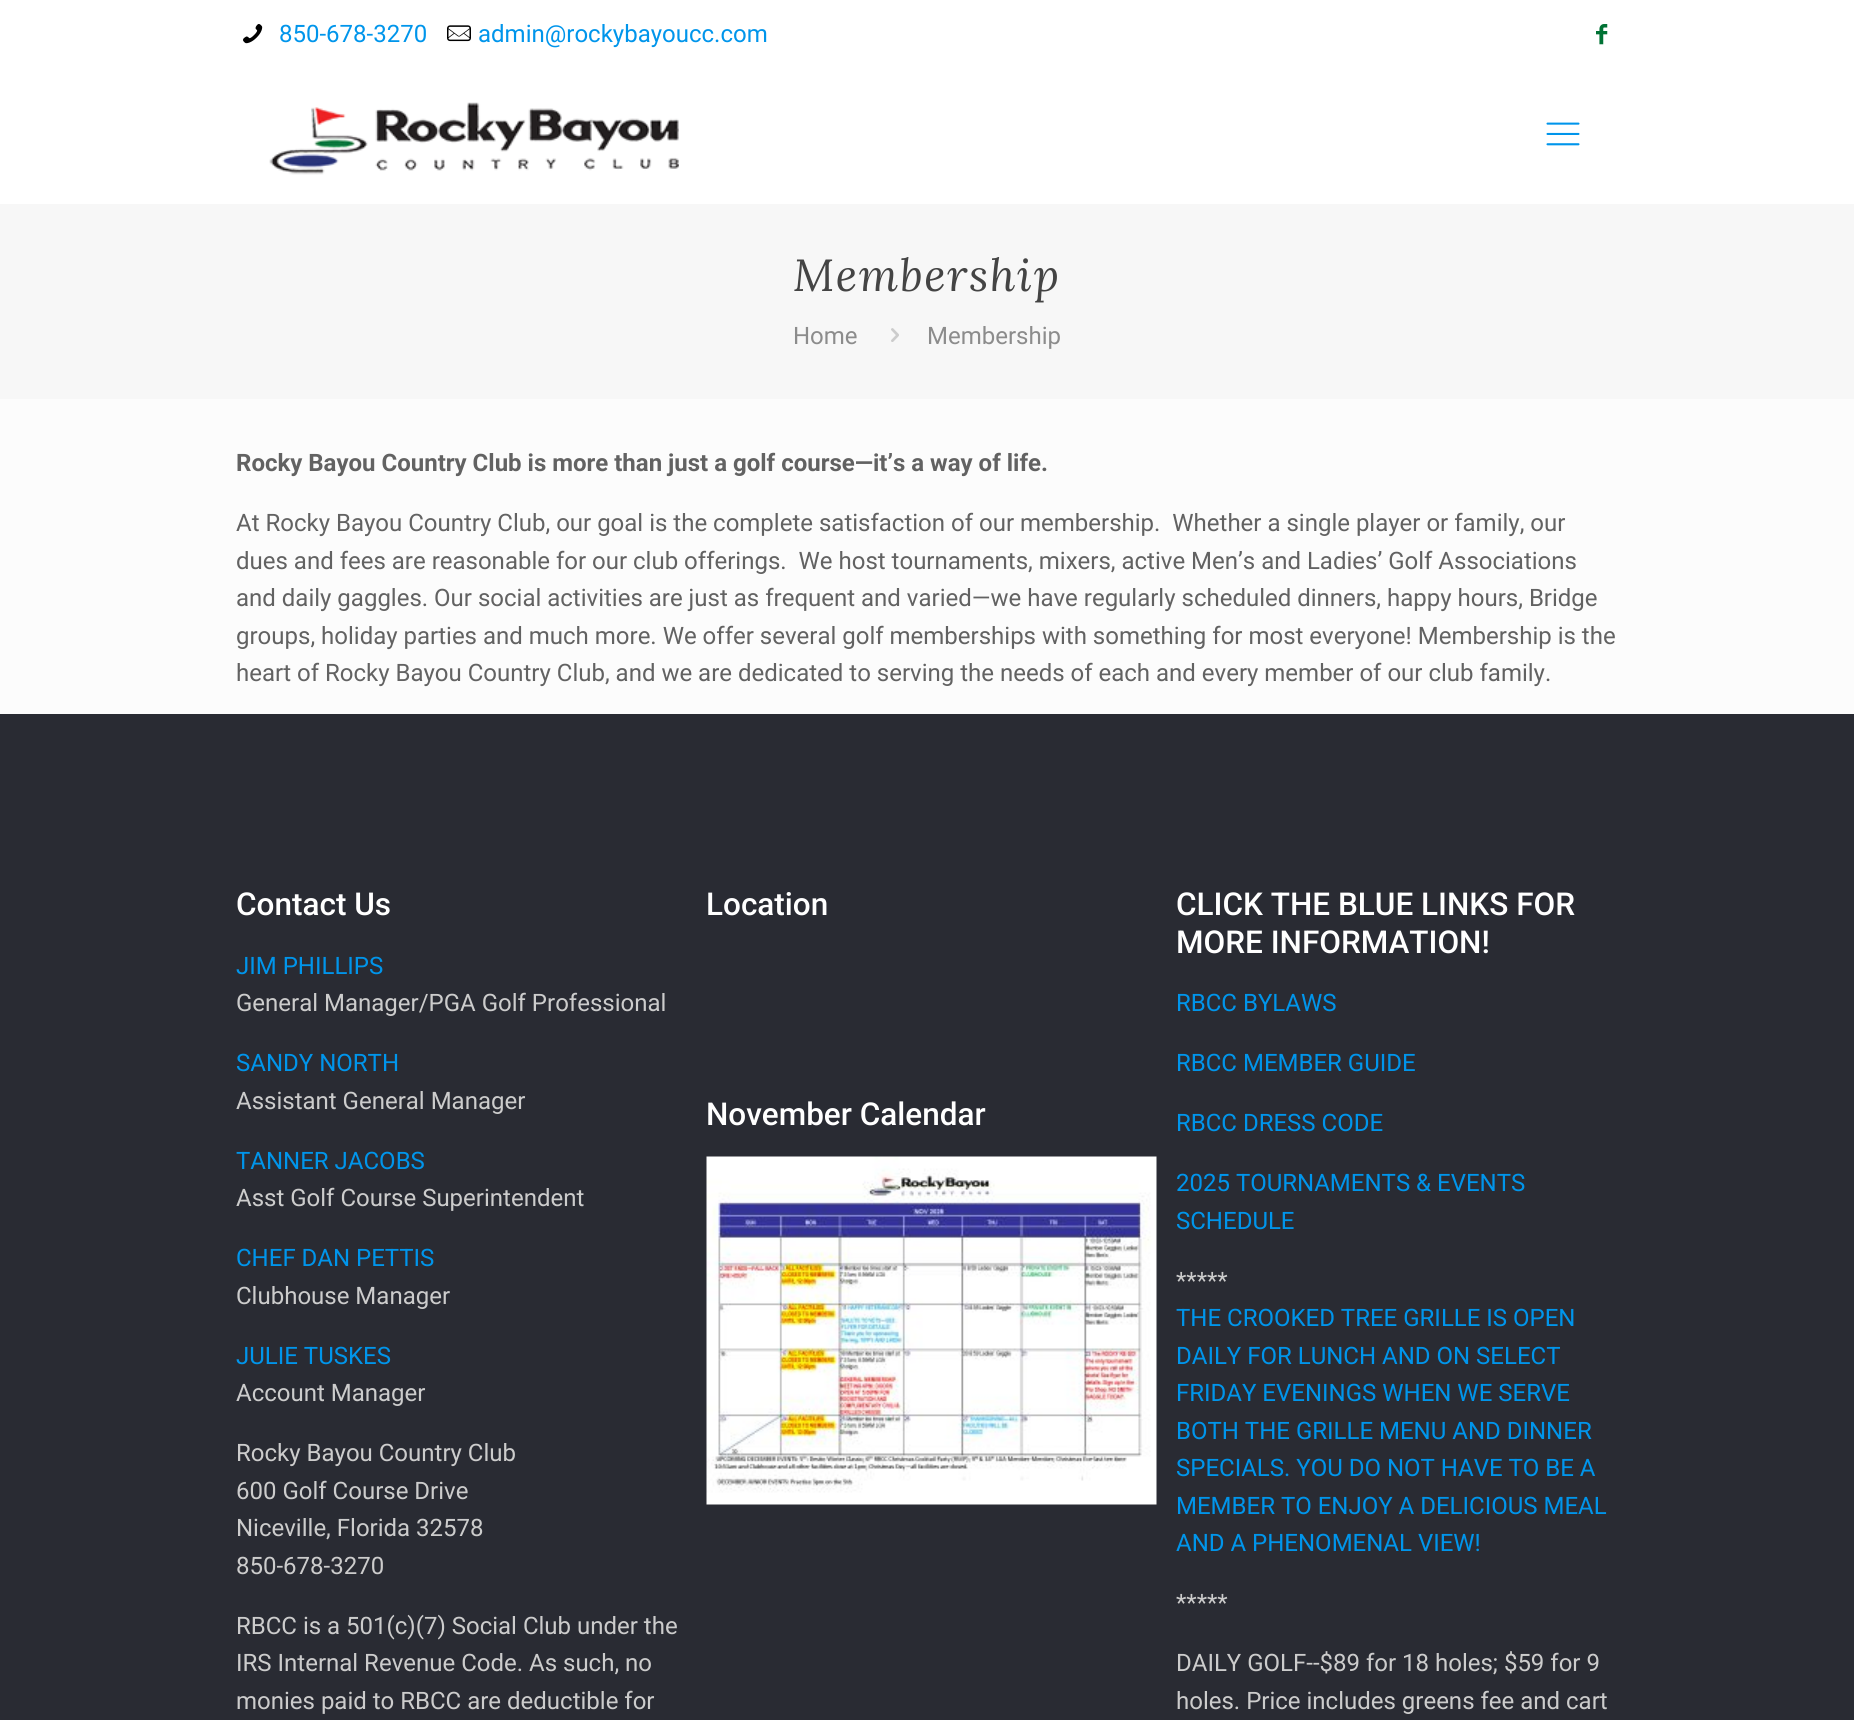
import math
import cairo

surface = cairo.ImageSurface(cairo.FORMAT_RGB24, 1854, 1720)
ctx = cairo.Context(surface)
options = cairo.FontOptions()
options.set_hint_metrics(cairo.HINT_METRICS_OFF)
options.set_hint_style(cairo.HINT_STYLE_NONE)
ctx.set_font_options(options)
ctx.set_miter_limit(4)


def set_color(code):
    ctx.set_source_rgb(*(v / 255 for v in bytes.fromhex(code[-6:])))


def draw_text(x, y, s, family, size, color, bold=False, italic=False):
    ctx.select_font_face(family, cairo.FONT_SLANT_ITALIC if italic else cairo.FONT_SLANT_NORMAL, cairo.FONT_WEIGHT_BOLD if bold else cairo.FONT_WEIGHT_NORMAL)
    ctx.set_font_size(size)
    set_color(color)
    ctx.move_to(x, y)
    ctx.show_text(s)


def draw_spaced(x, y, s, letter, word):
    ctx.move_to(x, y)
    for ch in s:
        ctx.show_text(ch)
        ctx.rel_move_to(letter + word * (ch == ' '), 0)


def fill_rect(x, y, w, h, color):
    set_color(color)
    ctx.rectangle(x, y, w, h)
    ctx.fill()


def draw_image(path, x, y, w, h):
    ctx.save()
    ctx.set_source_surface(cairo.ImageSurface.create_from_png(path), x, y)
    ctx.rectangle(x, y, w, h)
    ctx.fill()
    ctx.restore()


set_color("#fcfcfc")
ctx.paint()
fill_rect(0, 0, 1854, 204, "#ffffff")
draw_image("assets/img1.png", 243, 24, 20, 20)
draw_text(279, 42, "850-678-3270", "Roboto", 24, "#0095eb")
draw_image("assets/img2.png", 447, 25, 24, 17)
draw_text(478, 42, "admin@rockybayoucc.com", "Roboto", 24, "#0095eb")
draw_image("assets/img3.png", 1596, 24, 12, 21)
draw_image("assets/img4.png", 269, 102, 410, 73)
draw_image("assets/img5.png", 1546, 122, 34, 24)
fill_rect(0, 204, 1854, 195, "#f7f7f7")
ctx.select_font_face("Lora", cairo.FONT_SLANT_ITALIC)
ctx.set_font_size(45)
set_color("#444444")
draw_spaced(793, 291, "Membership", 1.5, 0)
draw_text(793, 344, "Home", "Roboto", 24, "#8c8c8c")
draw_image("assets/img6.png", 891, 328, 8, 14)
draw_text(927, 344, "Membership", "Roboto", 24, "#8c8c8c")
draw_text(236, 471, "Rocky Bayou Country Club is more than just a golf course—it’s a way of life.", "Roboto", 24, "#626262", bold=True)
draw_text(236, 531, "At Rocky Bayou Country Club, our goal is the complete satisfaction of our membership.  Whether a single player or family, our", "Roboto", 24, "#626262")
draw_text(236, 569, "dues and fees are reasonable for our club offerings.  We host tournaments, mixers, active Men’s and Ladies’ Golf Associations", "Roboto", 24, "#626262")
draw_text(236, 606, "and daily gaggles. Our social activities are just as frequent and varied—we have regularly scheduled dinners, happy hours, Bridge", "Roboto", 24, "#626262")
draw_text(236, 644, "groups, holiday parties and much more. We offer several golf memberships with something for most everyone! Membership is the", "Roboto", 24, "#626262")
draw_text(236, 681, "heart of Rocky Bayou Country Club, and we are dedicated to serving the needs of each and every member of our club family.", "Roboto", 24, "#626262")
fill_rect(0, 714, 1854, 1006, "#292b33")
draw_text(236, 915, "Contact Us", "Roboto Medium", 31.5, "#ffffff")
draw_text(236, 974, "JIM PHILLIPS", "Roboto", 24, "#0095eb")
draw_text(236, 1011, "General Manager/PGA Golf Professional", "Roboto", 24, "#cccccc")
draw_text(236, 1071, "SANDY NORTH", "Roboto", 24, "#0095eb")
draw_text(236, 1109, "Assistant General Manager", "Roboto", 24, "#cccccc")
draw_text(236, 1169, "TANNER JACOBS", "Roboto", 24, "#0095eb")
draw_text(236, 1206, "Asst Golf Course Superintendent", "Roboto", 24, "#cccccc")
draw_text(236, 1266, "CHEF DAN PETTIS", "Roboto", 24, "#0095eb")
draw_text(236, 1304, "Clubhouse Manager", "Roboto", 24, "#cccccc")
draw_text(236, 1364, "JULIE TUSKES", "Roboto", 24, "#0095eb")
draw_text(236, 1401, "Account Manager", "Roboto", 24, "#cccccc")
draw_text(236, 1461, "Rocky Bayou Country Club", "Roboto", 24, "#cccccc")
draw_text(236, 1499, "600 Golf Course Drive", "Roboto", 24, "#cccccc")
draw_text(236, 1536, "Niceville, Florida 32578", "Roboto", 24, "#cccccc")
draw_text(236, 1574, "850-678-3270", "Roboto", 24, "#cccccc")
draw_text(236, 1634, "RBCC is a 501(c)(7) Social Club under the", "Roboto", 24, "#cccccc")
draw_text(236, 1671, "IRS Internal Revenue Code. As such, no", "Roboto", 24, "#cccccc")
draw_text(236, 1709, "monies paid to RBCC are deductible for", "Roboto", 24, "#cccccc")
draw_text(706, 915, "Location", "Roboto Medium", 31.5, "#ffffff")
draw_text(706, 1125, "November Calendar", "Roboto Medium", 31.5, "#ffffff")
draw_image("assets/img7.png", 706, 1156, 451, 349)
draw_text(1176, 915, "CLICK THE BLUE LINKS FOR", "Roboto Medium", 31.5, "#ffffff")
draw_text(1176, 953, "MORE INFORMATION!", "Roboto Medium", 31.5, "#ffffff")
draw_text(1176, 1011, "RBCC BYLAWS", "Roboto", 24, "#0095eb")
draw_text(1176, 1071, "RBCC MEMBER GUIDE", "Roboto", 24, "#0095eb")
draw_text(1176, 1131, "RBCC DRESS CODE", "Roboto", 24, "#0095eb")
draw_text(1176, 1191, "2025 TOURNAMENTS & EVENTS", "Roboto", 24, "#0095eb")
draw_text(1176, 1229, "SCHEDULE", "Roboto", 24, "#0095eb")
draw_text(1176, 1289, "*****", "Roboto", 24, "#cccccc")
draw_text(1176, 1326, "THE CROOKED TREE GRILLE IS OPEN", "Roboto", 24, "#0095eb")
draw_text(1176, 1364, "DAILY FOR LUNCH AND ON SELECT", "Roboto", 24, "#0095eb")
draw_text(1176, 1401, "FRIDAY EVENINGS WHEN WE SERVE", "Roboto", 24, "#0095eb")
draw_text(1176, 1439, "BOTH THE GRILLE MENU AND DINNER", "Roboto", 24, "#0095eb")
draw_text(1176, 1476, "SPECIALS. YOU DO NOT HAVE TO BE A", "Roboto", 24, "#0095eb")
draw_text(1176, 1514, "MEMBER TO ENJOY A DELICIOUS MEAL", "Roboto", 24, "#0095eb")
draw_text(1176, 1551, "AND A PHENOMENAL VIEW!", "Roboto", 24, "#0095eb")
draw_text(1176, 1611, "*****", "Roboto", 24, "#cccccc")
draw_text(1176, 1671, "DAILY GOLF--$89 for 18 holes; $59 for 9", "Roboto", 24, "#cccccc")
draw_text(1176, 1709, "holes. Price includes greens fee and cart", "Roboto", 24, "#cccccc")
surface.write_to_png("output.png")
